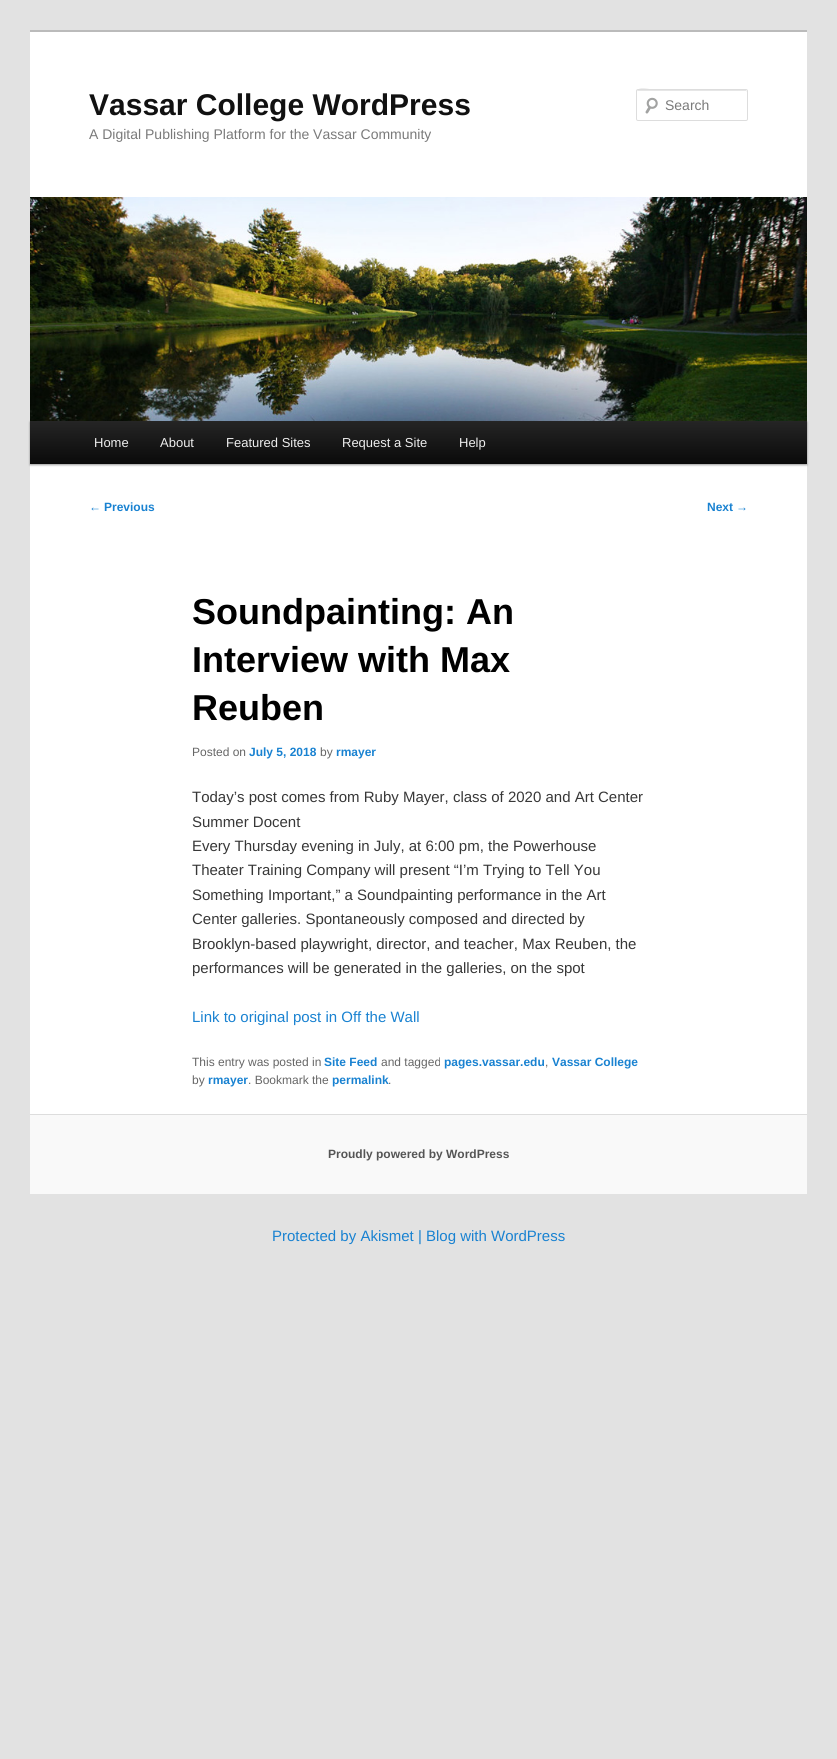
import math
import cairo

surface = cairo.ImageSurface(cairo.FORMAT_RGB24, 837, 1759)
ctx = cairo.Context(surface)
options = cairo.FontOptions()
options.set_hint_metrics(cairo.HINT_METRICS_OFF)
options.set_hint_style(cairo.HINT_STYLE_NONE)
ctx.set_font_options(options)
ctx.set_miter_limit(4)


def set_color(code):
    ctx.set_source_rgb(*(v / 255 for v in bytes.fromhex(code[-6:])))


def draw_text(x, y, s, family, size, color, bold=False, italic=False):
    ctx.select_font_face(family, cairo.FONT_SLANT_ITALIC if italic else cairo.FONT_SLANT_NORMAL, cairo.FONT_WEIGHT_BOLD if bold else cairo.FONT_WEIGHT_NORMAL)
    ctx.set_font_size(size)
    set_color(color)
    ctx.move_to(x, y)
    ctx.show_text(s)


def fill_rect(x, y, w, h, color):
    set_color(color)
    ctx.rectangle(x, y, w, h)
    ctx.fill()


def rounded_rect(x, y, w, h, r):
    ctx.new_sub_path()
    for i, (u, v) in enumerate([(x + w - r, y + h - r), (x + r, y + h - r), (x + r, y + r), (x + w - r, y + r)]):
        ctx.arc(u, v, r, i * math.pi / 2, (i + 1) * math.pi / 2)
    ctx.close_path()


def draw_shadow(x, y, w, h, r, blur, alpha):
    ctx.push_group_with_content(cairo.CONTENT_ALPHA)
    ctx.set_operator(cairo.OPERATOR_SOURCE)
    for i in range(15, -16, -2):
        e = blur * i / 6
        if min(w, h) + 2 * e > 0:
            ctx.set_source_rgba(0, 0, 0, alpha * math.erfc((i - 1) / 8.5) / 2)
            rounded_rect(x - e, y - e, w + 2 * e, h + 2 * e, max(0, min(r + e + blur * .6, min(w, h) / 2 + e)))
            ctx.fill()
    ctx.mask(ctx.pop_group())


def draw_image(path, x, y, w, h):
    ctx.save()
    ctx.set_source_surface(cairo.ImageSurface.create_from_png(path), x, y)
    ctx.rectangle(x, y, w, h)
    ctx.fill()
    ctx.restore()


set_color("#e2e2e2")
ctx.paint()
fill_rect(30, 32, 777, 1082, "#ffffff")
fill_rect(30, 30, 777, 2, "#bbbbbb")
draw_text(89, 115, "Vassar College WordPress", "Liberation Sans", 30, "#111111", bold=True)
draw_text(89, 139, "A Digital Publishing Platform for the Vassar Community", "Liberation Sans", 14, "#7a7a7a")
draw_image("assets/img1.png", 645, 97, 13, 17)
set_color("#e6e6e6")
ctx.new_path()
ctx.move_to(638, 91)
ctx.line_to(747, 91)
ctx.line_to(747, 92)
ctx.line_to(746, 90)
ctx.line_to(656, 90)
ctx.curve_to(652, 90, 637, 85, 637, 92)
ctx.curve_to(637, 91, 637, 91, 638, 91)
ctx.close_path()
ctx.fill()
rounded_rect(636.5, 89.5, 111, 31, 1.5)
set_color("#dddddd")
ctx.set_line_width(1)
ctx.stroke()
draw_text(665, 110, "Search", "Liberation Sans", 14, "#7a7a7a")
set_color("#000000")
draw_shadow(30, 422, 777, 43, 0, 1, 0.4)
draw_image("assets/img2.png", 30, 197, 777, 224)
gradient = cairo.LinearGradient(419, 421, 419, 464)
gradient.add_color_stop_rgba(0, 0.145, 0.145, 0.145, 1)
gradient.add_color_stop_rgba(1, 0.039, 0.039, 0.039, 1)
ctx.set_source(gradient)
ctx.rectangle(30, 421, 777, 43)
ctx.fill()
draw_text(94, 447, "Home", "Liberation Sans", 13, "#eeeeee")
draw_text(160, 447, "About", "Liberation Sans", 13, "#eeeeee")
draw_text(226, 447, "Featured Sites", "Liberation Sans", 13, "#eeeeee")
draw_text(342, 447, "Request a Site", "Liberation Sans", 13, "#eeeeee")
draw_text(459, 447, "Help", "Liberation Sans", 13, "#eeeeee")
draw_text(89, 511, "←", "Liberation Sans", 12, "#1982d1")
draw_text(104, 511, "Previous", "Liberation Sans", 12, "#1982d1", bold=True)
draw_text(707, 511, "Next", "Liberation Sans", 12, "#1982d1", bold=True)
draw_text(736, 511, "→", "Liberation Sans", 12, "#1982d1")
draw_text(192, 624, "Soundpainting: An", "Liberation Sans", 36, "#000000", bold=True)
draw_text(192, 672, "Interview with Max", "Liberation Sans", 36, "#000000", bold=True)
draw_text(192, 720, "Reuben", "Liberation Sans", 36, "#000000", bold=True)
draw_text(192, 756, "Posted on", "Liberation Sans", 12, "#666666")
draw_text(249, 756, "July 5, 2018", "Liberation Sans", 12, "#1982d1", bold=True)
draw_text(320, 756, "by", "Liberation Sans", 12, "#666666")
draw_text(336, 756, "rmayer", "Liberation Sans", 12, "#1982d1", bold=True)
draw_text(192, 802, "Today’s post comes from Ruby Mayer, class of 2020 and Art Center", "Liberation Sans", 15, "#373737")
draw_text(192, 827, "Summer Docent", "Liberation Sans", 15, "#373737")
draw_text(192, 851, "Every Thursday evening in July, at 6:00 pm, the Powerhouse", "Liberation Sans", 15, "#373737")
draw_text(192, 875, "Theater Training Company will present “I’m Trying to Tell You", "Liberation Sans", 15, "#373737")
draw_text(192, 900, "Something Important,” a Soundpainting performance in the Art", "Liberation Sans", 15, "#373737")
draw_text(192, 924, "Center galleries. Spontaneously composed and directed by", "Liberation Sans", 15, "#373737")
draw_text(192, 949, "Brooklyn-based playwright, director, and teacher, Max Reuben, the", "Liberation Sans", 15, "#373737")
draw_text(192, 973, "performances will be generated in the galleries, on the spot", "Liberation Sans", 15, "#373737")
draw_text(192, 1022, "Link to original post in Off the Wall", "Liberation Sans", 15, "#1982d1")
draw_text(192, 1066, "This entry was posted in", "Liberation Sans", 12, "#666666")
draw_text(324, 1066, "Site Feed", "Liberation Sans", 12, "#1982d1", bold=True)
draw_text(381, 1066, "and tagged", "Liberation Sans", 12, "#666666")
draw_text(444, 1066, "pages.vassar.edu", "Liberation Sans", 12, "#1982d1", bold=True)
draw_text(545, 1066, ",", "Liberation Sans", 12, "#666666")
draw_text(552, 1066, "Vassar College", "Liberation Sans", 12, "#1982d1", bold=True)
draw_text(192, 1084, "by", "Liberation Sans", 12, "#666666")
draw_text(208, 1084, "rmayer", "Liberation Sans", 12, "#1982d1", bold=True)
draw_text(248, 1084, ". Bookmark the", "Liberation Sans", 12, "#666666")
draw_text(332, 1084, "permalink", "Liberation Sans", 12, "#1982d1", bold=True)
draw_text(388, 1084, ".", "Liberation Sans", 12, "#666666")
fill_rect(30, 1115, 777, 79, "#f9f9f9")
fill_rect(30, 1114, 777, 1, "#dddddd")
draw_text(328, 1158, "Proudly powered by WordPress", "Liberation Sans", 12, "#555555", bold=True)
draw_text(272, 1241, "Protected by Akismet | Blog with WordPress", "Liberation Sans", 15, "#1982d1")
surface.write_to_png("output.png")
